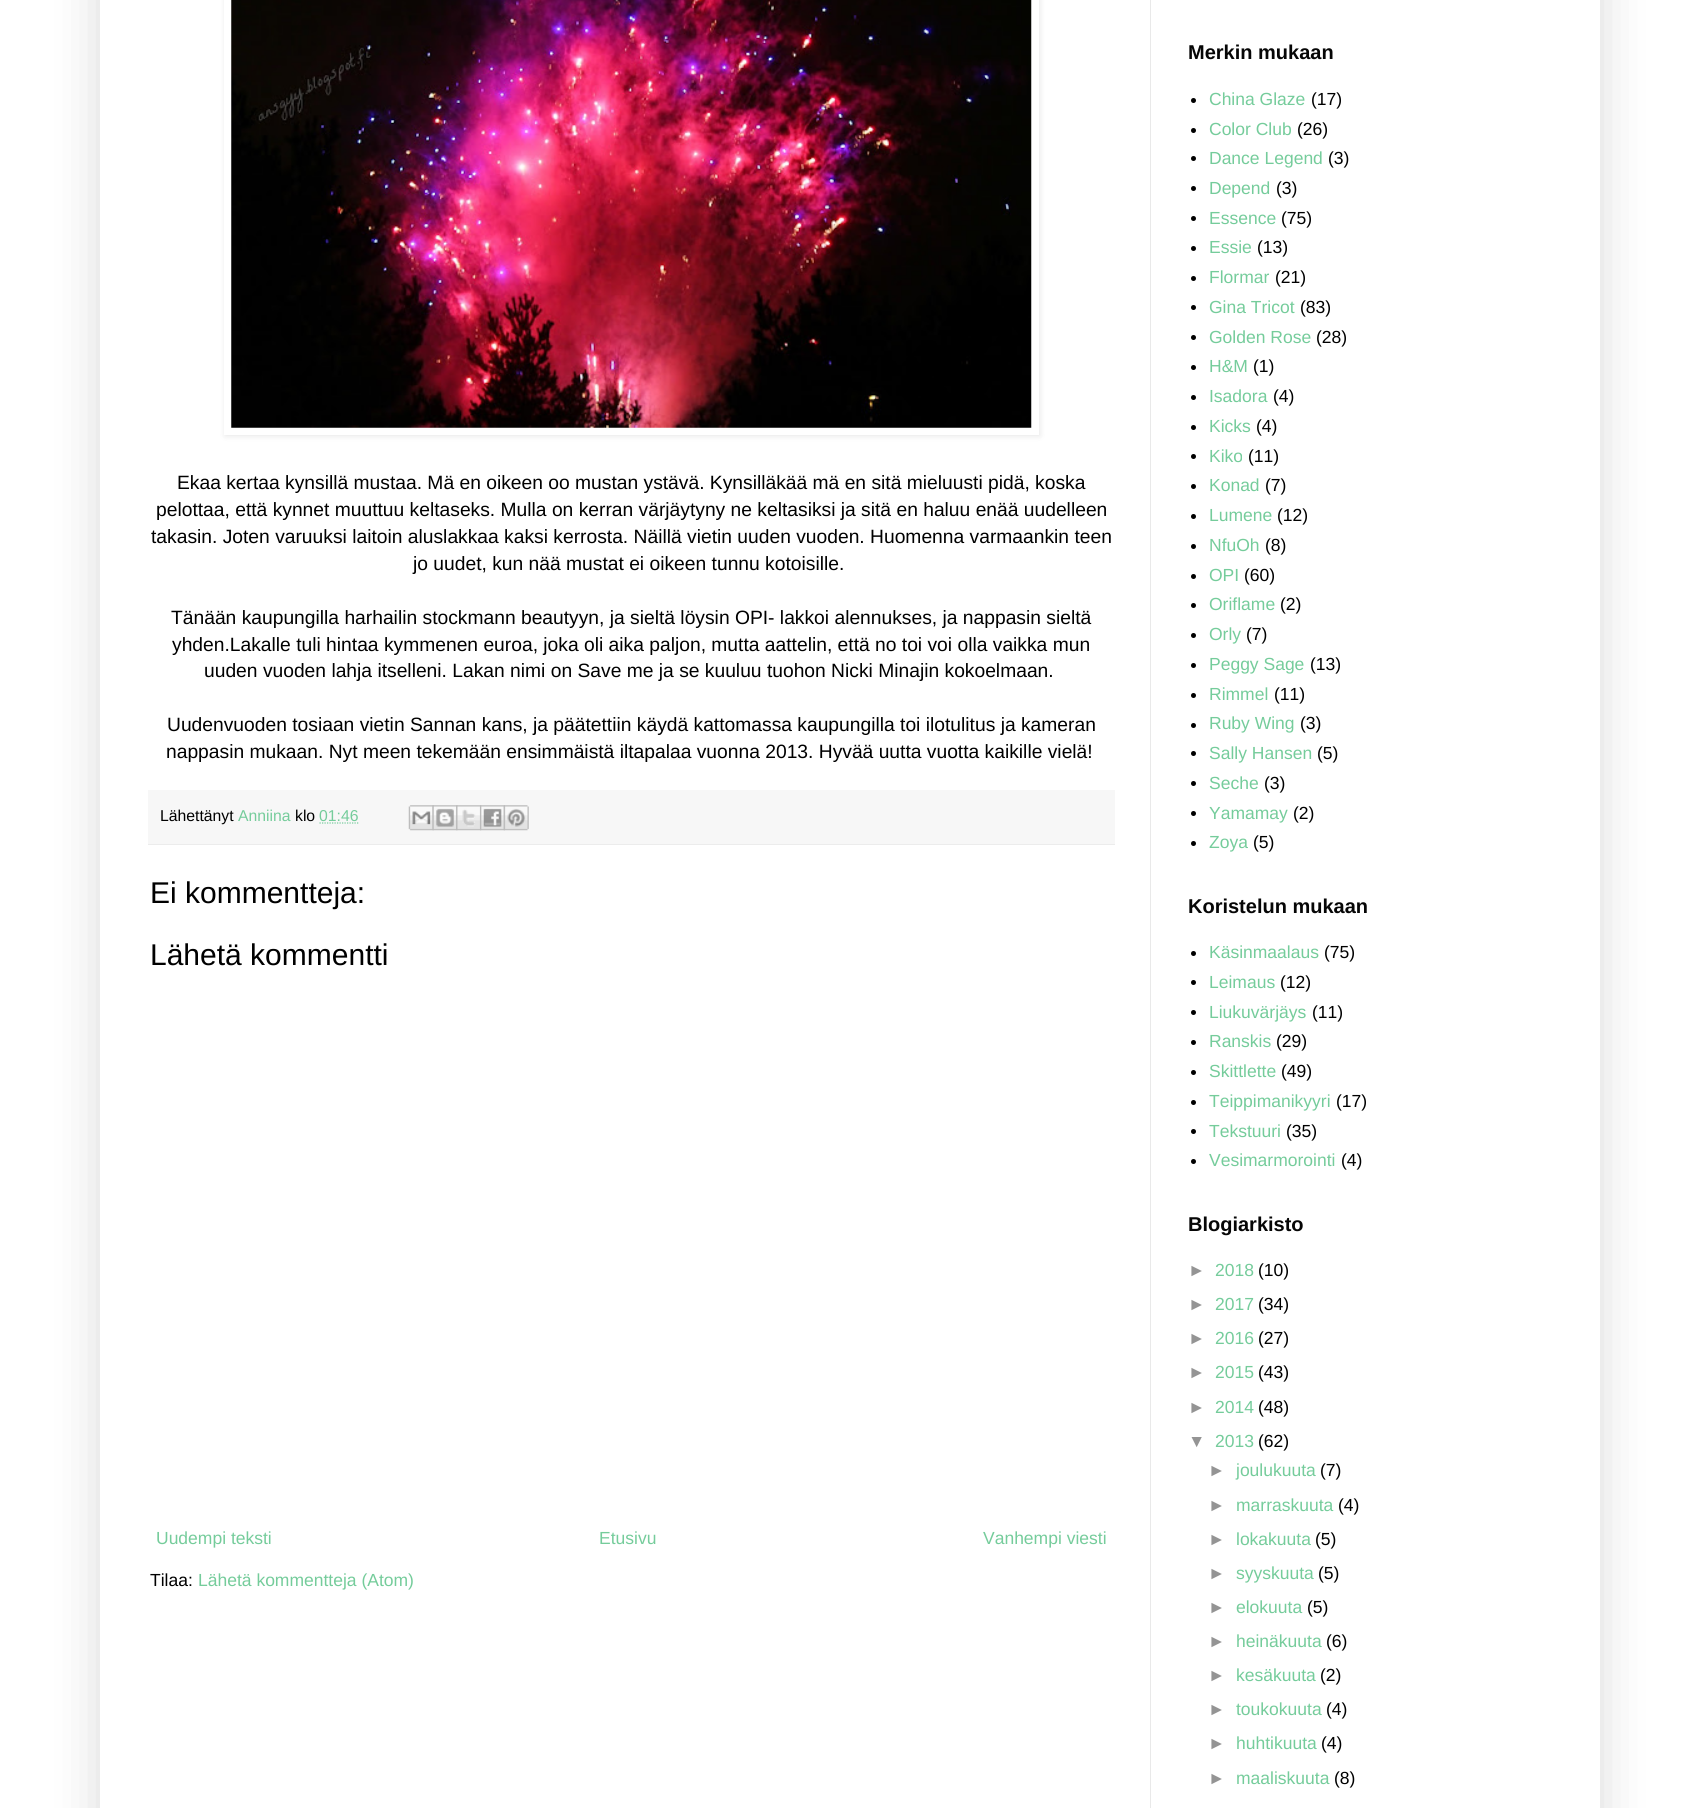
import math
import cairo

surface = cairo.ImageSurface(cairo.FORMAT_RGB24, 1699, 1808)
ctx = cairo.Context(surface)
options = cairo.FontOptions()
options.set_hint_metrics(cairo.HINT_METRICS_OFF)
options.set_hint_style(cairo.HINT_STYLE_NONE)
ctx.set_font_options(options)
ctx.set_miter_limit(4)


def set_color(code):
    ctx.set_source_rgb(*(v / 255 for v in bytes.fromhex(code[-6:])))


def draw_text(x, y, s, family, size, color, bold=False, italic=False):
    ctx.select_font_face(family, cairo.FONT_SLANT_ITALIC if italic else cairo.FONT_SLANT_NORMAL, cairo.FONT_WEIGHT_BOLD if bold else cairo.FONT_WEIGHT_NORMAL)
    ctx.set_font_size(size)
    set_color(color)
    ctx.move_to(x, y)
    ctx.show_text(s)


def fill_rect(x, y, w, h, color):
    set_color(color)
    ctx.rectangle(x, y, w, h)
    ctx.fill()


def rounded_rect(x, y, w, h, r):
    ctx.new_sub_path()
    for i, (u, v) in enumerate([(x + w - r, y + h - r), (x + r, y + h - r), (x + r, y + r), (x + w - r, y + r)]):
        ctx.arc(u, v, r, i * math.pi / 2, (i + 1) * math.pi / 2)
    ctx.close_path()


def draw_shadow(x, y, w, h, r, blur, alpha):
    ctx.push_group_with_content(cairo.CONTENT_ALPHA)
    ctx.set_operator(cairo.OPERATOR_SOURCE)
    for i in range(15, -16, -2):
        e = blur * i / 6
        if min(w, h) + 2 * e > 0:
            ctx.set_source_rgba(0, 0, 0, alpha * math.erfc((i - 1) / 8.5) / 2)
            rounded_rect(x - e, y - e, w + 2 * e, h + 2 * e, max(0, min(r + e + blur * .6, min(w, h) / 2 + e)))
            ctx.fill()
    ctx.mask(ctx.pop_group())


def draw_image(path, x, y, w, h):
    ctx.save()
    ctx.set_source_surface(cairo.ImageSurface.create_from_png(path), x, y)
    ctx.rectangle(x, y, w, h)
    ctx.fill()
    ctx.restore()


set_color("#ffffff")
ctx.paint()
ctx.save()
ctx.set_fill_rule(cairo.FILL_RULE_EVEN_ODD)
ctx.new_path()
ctx.move_to(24, 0)
ctx.line_to(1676, 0)
ctx.line_to(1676, 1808)
ctx.line_to(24, 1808)
ctx.close_path()
ctx.move_to(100, -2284)
ctx.line_to(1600, -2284)
ctx.line_to(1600, 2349)
ctx.line_to(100, 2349)
ctx.close_path()
ctx.clip()
set_color("#000000")
draw_shadow(100, -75, 1500, 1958, 0, 25, 0.15)
ctx.restore()
fill_rect(1150, 0, 1, 1808, "#e9e9e9")
set_color("#000000")
draw_shadow(225, -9, 815, 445, 0, 3, 0.1)
fill_rect(224, 0, 815, 435, "#ffffff")
draw_image("assets/img1.png", 231, 0, 801, 428)
draw_text(177, 489, "Ekaa kertaa kynsillä mustaa. Mä en oikeen oo mustan ystävä. Kynsilläkää mä en sitä mieluusti pidä, koska", "Arimo", 19.25, "#000000")
draw_text(156, 516, "pelottaa, että kynnet muuttuu keltaseks. Mulla on kerran värjäytyny ne keltasiksi ja sitä en haluu enää uudelleen", "Arimo", 19.25, "#000000")
draw_text(151, 543, "takasin. Joten varuuksi laitoin aluslakkaa kaksi kerrosta. Näillä vietin uuden vuoden. Huomenna varmaankin teen", "Arimo", 19.25, "#000000")
draw_text(413, 570, "jo uudet, kun nää mustat ei oikeen tunnu kotoisille.", "Arimo", 19.25, "#000000")
draw_text(171, 624, "Tänään kaupungilla harhailin stockmann beautyyn, ja sieltä löysin OPI- lakkoi alennukses, ja nappasin sieltä", "Arimo", 19.25, "#000000")
draw_text(172, 651, "yhden.Lakalle tuli hintaa kymmenen euroa, joka oli aika paljon, mutta aattelin, että no toi voi olla vaikka mun", "Arimo", 19.25, "#000000")
draw_text(204, 677, "uuden vuoden lahja itselleni. Lakan nimi on Save me ja se kuuluu tuohon Nicki Minajin kokoelmaan.", "Arimo", 19.25, "#000000")
draw_text(167, 731, "Uudenvuoden tosiaan vietin Sannan kans, ja päätettiin käydä kattomassa kaupungilla toi ilotulitus ja kameran", "Arimo", 19.25, "#000000")
draw_text(166, 758, "nappasin mukaan. Nyt meen tekemään ensimmäistä iltapalaa vuonna 2013. Hyvää uutta vuotta kaikille vielä!", "Arimo", 19.25, "#000000")
fill_rect(148, 790, 967, 54, "#f7f7f7")
fill_rect(148, 844, 967, 1, "#ececec")
draw_text(160, 821, "Lähettänyt", "Arimo", 15.75, "#000000")
draw_text(238, 821, "Anniina", "Arimo", 15.75, "#75cc9b")
draw_text(295, 821, "klo", "Arimo", 15.75, "#000000")
draw_text(319, 821, "01:46", "Arimo", 15.75, "#75cc9b")
ctx.new_path()
ctx.move_to(319.5, 823)
ctx.line_to(358.5, 823)
ctx.set_line_width(1.2)
ctx.set_dash([1.25, 1.25])
ctx.stroke()
draw_image("assets/img2.png", 408, 805, 26, 26)
draw_image("assets/img3.png", 432, 805, 26, 26)
draw_image("assets/img4.png", 456, 805, 26, 26)
draw_image("assets/img5.png", 480, 805, 25, 26)
draw_image("assets/img6.png", 503, 805, 26, 26)
draw_text(150, 903, "Ei kommentteja:", "Arimo", 30, "#000000")
draw_text(150, 965, "Lähetä kommentti", "Arimo", 30, "#000000")
draw_text(156, 1544, "Uudempi teksti", "Arimo", 17.5, "#75cc9b")
draw_text(599, 1544, "Etusivu", "Arimo", 17.5, "#75cc9b")
draw_text(983, 1544, "Vanhempi viesti", "Arimo", 17.5, "#75cc9b")
draw_text(150, 1586, "Tilaa:", "Arimo", 17.5, "#000000")
draw_text(198, 1586, "Lähetä kommentteja (Atom)", "Arimo", 17.5, "#75cc9b")
draw_text(1188, 59, "Merkin mukaan", "Arimo", 20, "#060606", bold=True)
set_color("#000000")
ctx.new_path()
ctx.arc(1193.5, 100.5, 2.5, 0, 2 * math.pi)
ctx.fill()
draw_text(1209, 105, "China Glaze", "Arimo", 17.5, "#75cc9b")
draw_text(1311, 105, "(17)", "Arimo", 17.5, "#000000")
ctx.new_path()
ctx.arc(1193.5, 130.5, 2.5, 0, 2 * math.pi)
ctx.fill()
draw_text(1209, 135, "Color Club", "Arimo", 17.5, "#75cc9b")
draw_text(1297, 135, "(26)", "Arimo", 17.5, "#000000")
ctx.new_path()
ctx.arc(1193.5, 158.5, 2.5, 0, 2 * math.pi)
ctx.fill()
draw_text(1209, 164, "Dance Legend", "Arimo", 17.5, "#75cc9b")
draw_text(1328, 164, "(3)", "Arimo", 17.5, "#000000")
ctx.new_path()
ctx.arc(1193.5, 188.5, 2.5, 0, 2 * math.pi)
ctx.fill()
draw_text(1209, 194, "Depend", "Arimo", 17.5, "#75cc9b")
draw_text(1276, 194, "(3)", "Arimo", 17.5, "#000000")
ctx.new_path()
ctx.arc(1193.5, 218.5, 2.5, 0, 2 * math.pi)
ctx.fill()
draw_text(1209, 224, "Essence", "Arimo", 17.5, "#75cc9b")
draw_text(1281, 224, "(75)", "Arimo", 17.5, "#000000")
ctx.new_path()
ctx.arc(1193.5, 248.5, 2.5, 0, 2 * math.pi)
ctx.fill()
draw_text(1209, 253, "Essie", "Arimo", 17.5, "#75cc9b")
draw_text(1257, 253, "(13)", "Arimo", 17.5, "#000000")
ctx.new_path()
ctx.arc(1193.5, 278.5, 2.5, 0, 2 * math.pi)
ctx.fill()
draw_text(1209, 283, "Flormar", "Arimo", 17.5, "#75cc9b")
draw_text(1275, 283, "(21)", "Arimo", 17.5, "#000000")
ctx.new_path()
ctx.arc(1193.5, 307.5, 2.5, 0, 2 * math.pi)
ctx.fill()
draw_text(1209, 313, "Gina Tricot", "Arimo", 17.5, "#75cc9b")
draw_text(1300, 313, "(83)", "Arimo", 17.5, "#000000")
ctx.new_path()
ctx.arc(1193.5, 337.5, 2.5, 0, 2 * math.pi)
ctx.fill()
draw_text(1209, 343, "Golden Rose", "Arimo", 17.5, "#75cc9b")
draw_text(1316, 343, "(28)", "Arimo", 17.5, "#000000")
ctx.new_path()
ctx.arc(1193.5, 367.5, 2.5, 0, 2 * math.pi)
ctx.fill()
draw_text(1209, 372, "H&M", "Arimo", 17.5, "#75cc9b")
draw_text(1253, 372, "(1)", "Arimo", 17.5, "#000000")
ctx.new_path()
ctx.arc(1193.5, 397.5, 2.5, 0, 2 * math.pi)
ctx.fill()
draw_text(1209, 402, "Isadora", "Arimo", 17.5, "#75cc9b")
draw_text(1273, 402, "(4)", "Arimo", 17.5, "#000000")
ctx.new_path()
ctx.arc(1193.5, 427.5, 2.5, 0, 2 * math.pi)
ctx.fill()
draw_text(1209, 432, "Kicks", "Arimo", 17.5, "#75cc9b")
draw_text(1256, 432, "(4)", "Arimo", 17.5, "#000000")
ctx.new_path()
ctx.arc(1193.5, 456.5, 2.5, 0, 2 * math.pi)
ctx.fill()
draw_text(1209, 462, "Kiko", "Arimo", 17.5, "#75cc9b")
draw_text(1248, 462, "(11)", "Arimo", 17.5, "#000000")
ctx.new_path()
ctx.arc(1193.5, 486.5, 2.5, 0, 2 * math.pi)
ctx.fill()
draw_text(1209, 491, "Konad", "Arimo", 17.5, "#75cc9b")
draw_text(1265, 491, "(7)", "Arimo", 17.5, "#000000")
ctx.new_path()
ctx.arc(1193.5, 516.5, 2.5, 0, 2 * math.pi)
ctx.fill()
draw_text(1209, 521, "Lumene", "Arimo", 17.5, "#75cc9b")
draw_text(1277, 521, "(12)", "Arimo", 17.5, "#000000")
ctx.new_path()
ctx.arc(1193.5, 546.5, 2.5, 0, 2 * math.pi)
ctx.fill()
draw_text(1209, 551, "NfuOh", "Arimo", 17.5, "#75cc9b")
draw_text(1265, 551, "(8)", "Arimo", 17.5, "#000000")
ctx.new_path()
ctx.arc(1193.5, 576.5, 2.5, 0, 2 * math.pi)
ctx.fill()
draw_text(1209, 581, "OPI", "Arimo", 17.5, "#75cc9b")
draw_text(1244, 581, "(60)", "Arimo", 17.5, "#000000")
ctx.new_path()
ctx.arc(1193.5, 605.5, 2.5, 0, 2 * math.pi)
ctx.fill()
draw_text(1209, 610, "Oriflame", "Arimo", 17.5, "#75cc9b")
draw_text(1280, 610, "(2)", "Arimo", 17.5, "#000000")
ctx.new_path()
ctx.arc(1193.5, 635.5, 2.5, 0, 2 * math.pi)
ctx.fill()
draw_text(1209, 640, "Orly", "Arimo", 17.5, "#75cc9b")
draw_text(1246, 640, "(7)", "Arimo", 17.5, "#000000")
ctx.new_path()
ctx.arc(1193.5, 665.5, 2.5, 0, 2 * math.pi)
ctx.fill()
draw_text(1209, 670, "Peggy Sage", "Arimo", 17.5, "#75cc9b")
draw_text(1310, 670, "(13)", "Arimo", 17.5, "#000000")
ctx.new_path()
ctx.arc(1193.5, 695.5, 2.5, 0, 2 * math.pi)
ctx.fill()
draw_text(1209, 700, "Rimmel", "Arimo", 17.5, "#75cc9b")
draw_text(1274, 700, "(11)", "Arimo", 17.5, "#000000")
ctx.new_path()
ctx.arc(1193.5, 725.5, 2.5, 0, 2 * math.pi)
ctx.fill()
draw_text(1209, 729, "Ruby Wing", "Arimo", 17.5, "#75cc9b")
draw_text(1300, 729, "(3)", "Arimo", 17.5, "#000000")
ctx.new_path()
ctx.arc(1193.5, 753.5, 2.5, 0, 2 * math.pi)
ctx.fill()
draw_text(1209, 759, "Sally Hansen", "Arimo", 17.5, "#75cc9b")
draw_text(1317, 759, "(5)", "Arimo", 17.5, "#000000")
ctx.new_path()
ctx.arc(1193.5, 783.5, 2.5, 0, 2 * math.pi)
ctx.fill()
draw_text(1209, 789, "Seche", "Arimo", 17.5, "#75cc9b")
draw_text(1264, 789, "(3)", "Arimo", 17.5, "#000000")
ctx.new_path()
ctx.arc(1193.5, 813.5, 2.5, 0, 2 * math.pi)
ctx.fill()
draw_text(1209, 819, "Yamamay", "Arimo", 17.5, "#75cc9b")
draw_text(1293, 819, "(2)", "Arimo", 17.5, "#000000")
ctx.new_path()
ctx.arc(1193.5, 843.5, 2.5, 0, 2 * math.pi)
ctx.fill()
draw_text(1209, 848, "Zoya", "Arimo", 17.5, "#75cc9b")
draw_text(1253, 848, "(5)", "Arimo", 17.5, "#000000")
draw_text(1188, 913, "Koristelun mukaan", "Arimo", 20, "#060606", bold=True)
set_color("#000000")
ctx.new_path()
ctx.arc(1193.5, 953.5, 2.5, 0, 2 * math.pi)
ctx.fill()
draw_text(1209, 958, "Käsinmaalaus", "Arimo", 17.5, "#75cc9b")
draw_text(1324, 958, "(75)", "Arimo", 17.5, "#000000")
ctx.new_path()
ctx.arc(1193.5, 982.5, 2.5, 0, 2 * math.pi)
ctx.fill()
draw_text(1209, 988, "Leimaus", "Arimo", 17.5, "#75cc9b")
draw_text(1280, 988, "(12)", "Arimo", 17.5, "#000000")
ctx.new_path()
ctx.arc(1193.5, 1012.5, 2.5, 0, 2 * math.pi)
ctx.fill()
draw_text(1209, 1018, "Liukuvärjäys", "Arimo", 17.5, "#75cc9b")
draw_text(1312, 1018, "(11)", "Arimo", 17.5, "#000000")
ctx.new_path()
ctx.arc(1193.5, 1042.5, 2.5, 0, 2 * math.pi)
ctx.fill()
draw_text(1209, 1047, "Ranskis", "Arimo", 17.5, "#75cc9b")
draw_text(1276, 1047, "(29)", "Arimo", 17.5, "#000000")
ctx.new_path()
ctx.arc(1193.5, 1072.5, 2.5, 0, 2 * math.pi)
ctx.fill()
draw_text(1209, 1077, "Skittlette", "Arimo", 17.5, "#75cc9b")
draw_text(1281, 1077, "(49)", "Arimo", 17.5, "#000000")
ctx.new_path()
ctx.arc(1193.5, 1102.5, 2.5, 0, 2 * math.pi)
ctx.fill()
draw_text(1209, 1107, "Teippimanikyyri", "Arimo", 17.5, "#75cc9b")
draw_text(1336, 1107, "(17)", "Arimo", 17.5, "#000000")
ctx.new_path()
ctx.arc(1193.5, 1131.5, 2.5, 0, 2 * math.pi)
ctx.fill()
draw_text(1209, 1137, "Tekstuuri", "Arimo", 17.5, "#75cc9b")
draw_text(1286, 1137, "(35)", "Arimo", 17.5, "#000000")
ctx.new_path()
ctx.arc(1193.5, 1161.5, 2.5, 0, 2 * math.pi)
ctx.fill()
draw_text(1209, 1166, "Vesimarmorointi", "Arimo", 17.5, "#75cc9b")
draw_text(1341, 1166, "(4)", "Arimo", 17.5, "#000000")
draw_text(1188, 1231, "Blogiarkisto", "Arimo", 20, "#060606", bold=True)
draw_text(1188, 1276, "►", "Liberation Sans", 17.5, "#949494")
draw_text(1215, 1276, "2018", "Arimo", 17.5, "#75cc9b")
draw_text(1258, 1276, "(10)", "Arimo", 17.5, "#000000")
draw_text(1188, 1310, "►", "Liberation Sans", 17.5, "#949494")
draw_text(1215, 1310, "2017", "Arimo", 17.5, "#75cc9b")
draw_text(1258, 1310, "(34)", "Arimo", 17.5, "#000000")
draw_text(1188, 1344, "►", "Liberation Sans", 17.5, "#949494")
draw_text(1215, 1344, "2016", "Arimo", 17.5, "#75cc9b")
draw_text(1258, 1344, "(27)", "Arimo", 17.5, "#000000")
draw_text(1188, 1378, "►", "Liberation Sans", 17.5, "#949494")
draw_text(1215, 1378, "2015", "Arimo", 17.5, "#75cc9b")
draw_text(1258, 1378, "(43)", "Arimo", 17.5, "#000000")
draw_text(1188, 1413, "►", "Liberation Sans", 17.5, "#949494")
draw_text(1215, 1413, "2014", "Arimo", 17.5, "#75cc9b")
draw_text(1258, 1413, "(48)", "Arimo", 17.5, "#000000")
draw_text(1188, 1447, "▼", "Liberation Sans", 17.5, "#949494")
draw_text(1215, 1447, "2013", "Arimo", 17.5, "#75cc9b")
draw_text(1258, 1447, "(62)", "Arimo", 17.5, "#000000")
draw_text(1208, 1476, "►", "Liberation Sans", 17.5, "#949494")
draw_text(1236, 1476, "joulukuuta", "Arimo", 17.5, "#75cc9b")
draw_text(1320, 1476, "(7)", "Arimo", 17.5, "#000000")
draw_text(1208, 1511, "►", "Liberation Sans", 17.5, "#949494")
draw_text(1236, 1511, "marraskuuta", "Arimo", 17.5, "#75cc9b")
draw_text(1338, 1511, "(4)", "Arimo", 17.5, "#000000")
draw_text(1208, 1545, "►", "Liberation Sans", 17.5, "#949494")
draw_text(1236, 1545, "lokakuuta", "Arimo", 17.5, "#75cc9b")
draw_text(1315, 1545, "(5)", "Arimo", 17.5, "#000000")
draw_text(1208, 1579, "►", "Liberation Sans", 17.5, "#949494")
draw_text(1236, 1579, "syyskuuta", "Arimo", 17.5, "#75cc9b")
draw_text(1318, 1579, "(5)", "Arimo", 17.5, "#000000")
draw_text(1208, 1613, "►", "Liberation Sans", 17.5, "#949494")
draw_text(1236, 1613, "elokuuta", "Arimo", 17.5, "#75cc9b")
draw_text(1307, 1613, "(5)", "Arimo", 17.5, "#000000")
draw_text(1208, 1647, "►", "Liberation Sans", 17.5, "#949494")
draw_text(1236, 1647, "heinäkuuta", "Arimo", 17.5, "#75cc9b")
draw_text(1326, 1647, "(6)", "Arimo", 17.5, "#000000")
draw_text(1208, 1681, "►", "Liberation Sans", 17.5, "#949494")
draw_text(1236, 1681, "kesäkuuta", "Arimo", 17.5, "#75cc9b")
draw_text(1320, 1681, "(2)", "Arimo", 17.5, "#000000")
draw_text(1208, 1715, "►", "Liberation Sans", 17.5, "#949494")
draw_text(1236, 1715, "toukokuuta", "Arimo", 17.5, "#75cc9b")
draw_text(1326, 1715, "(4)", "Arimo", 17.5, "#000000")
draw_text(1208, 1749, "►", "Liberation Sans", 17.5, "#949494")
draw_text(1236, 1749, "huhtikuuta", "Arimo", 17.5, "#75cc9b")
draw_text(1321, 1749, "(4)", "Arimo", 17.5, "#000000")
draw_text(1208, 1784, "►", "Liberation Sans", 17.5, "#949494")
draw_text(1236, 1784, "maaliskuuta", "Arimo", 17.5, "#75cc9b")
draw_text(1334, 1784, "(8)", "Arimo", 17.5, "#000000")
surface.write_to_png("output.png")
